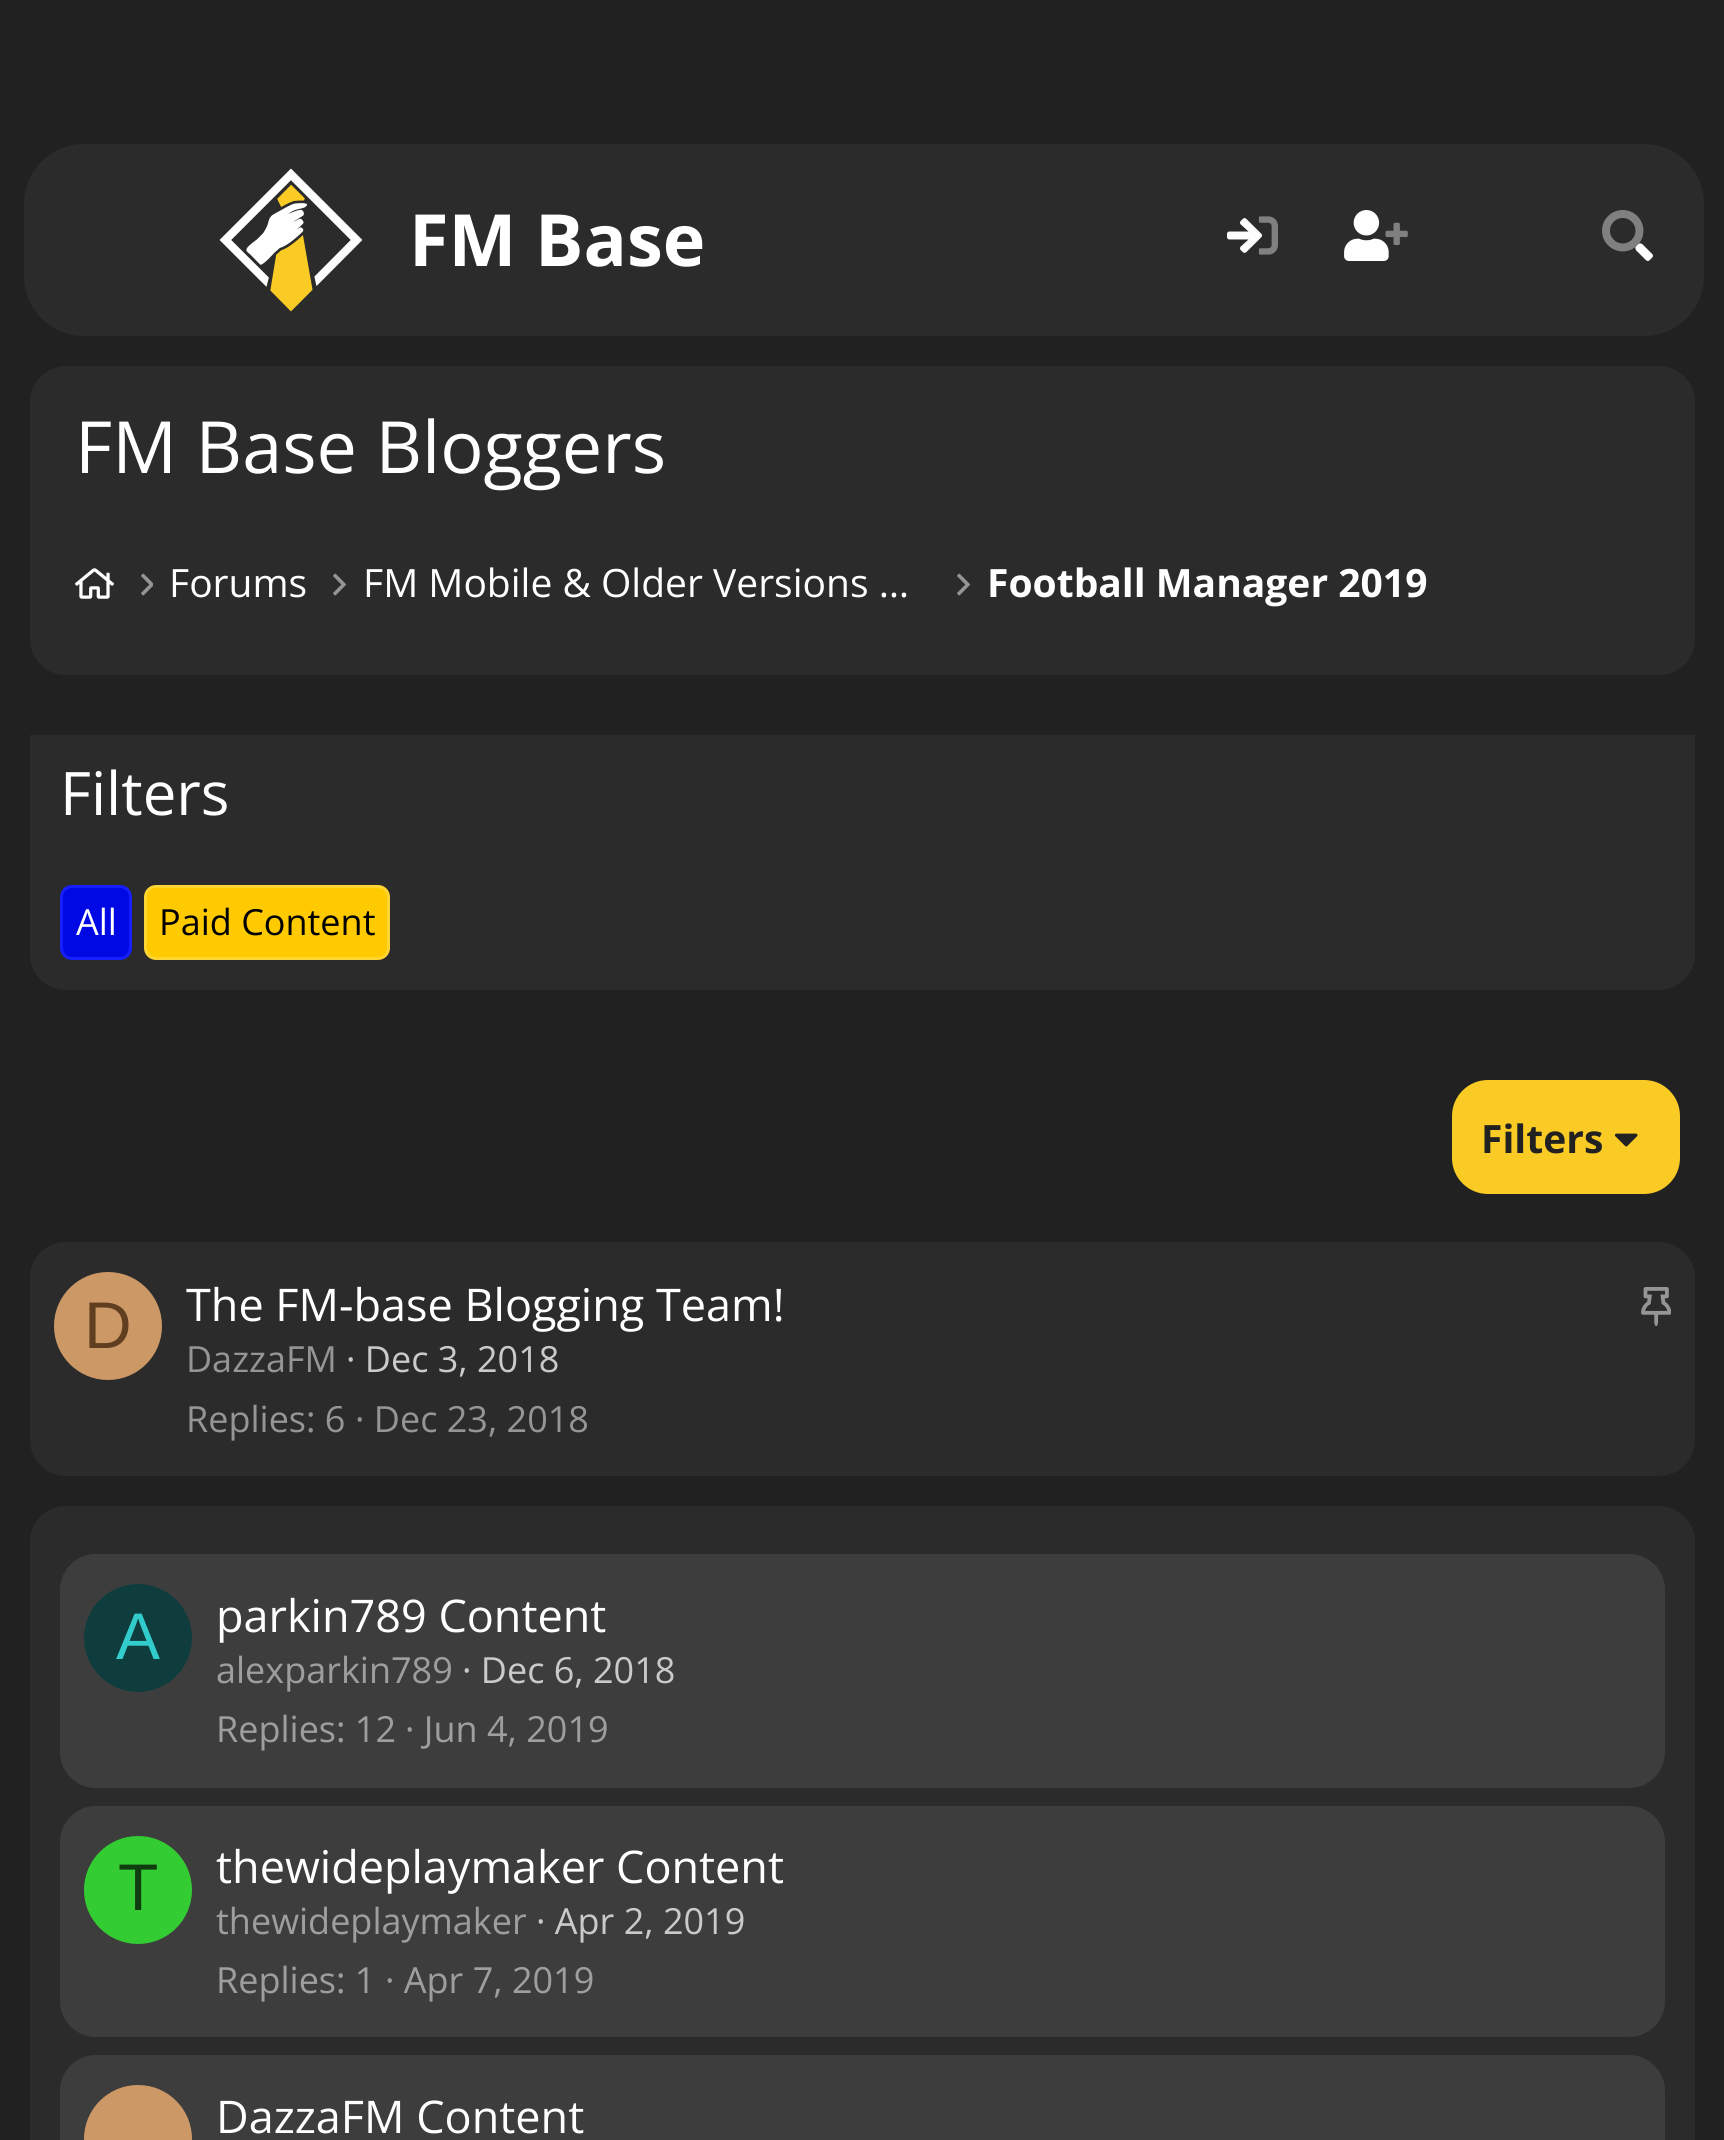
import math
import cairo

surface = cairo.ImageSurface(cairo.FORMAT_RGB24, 1724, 2140)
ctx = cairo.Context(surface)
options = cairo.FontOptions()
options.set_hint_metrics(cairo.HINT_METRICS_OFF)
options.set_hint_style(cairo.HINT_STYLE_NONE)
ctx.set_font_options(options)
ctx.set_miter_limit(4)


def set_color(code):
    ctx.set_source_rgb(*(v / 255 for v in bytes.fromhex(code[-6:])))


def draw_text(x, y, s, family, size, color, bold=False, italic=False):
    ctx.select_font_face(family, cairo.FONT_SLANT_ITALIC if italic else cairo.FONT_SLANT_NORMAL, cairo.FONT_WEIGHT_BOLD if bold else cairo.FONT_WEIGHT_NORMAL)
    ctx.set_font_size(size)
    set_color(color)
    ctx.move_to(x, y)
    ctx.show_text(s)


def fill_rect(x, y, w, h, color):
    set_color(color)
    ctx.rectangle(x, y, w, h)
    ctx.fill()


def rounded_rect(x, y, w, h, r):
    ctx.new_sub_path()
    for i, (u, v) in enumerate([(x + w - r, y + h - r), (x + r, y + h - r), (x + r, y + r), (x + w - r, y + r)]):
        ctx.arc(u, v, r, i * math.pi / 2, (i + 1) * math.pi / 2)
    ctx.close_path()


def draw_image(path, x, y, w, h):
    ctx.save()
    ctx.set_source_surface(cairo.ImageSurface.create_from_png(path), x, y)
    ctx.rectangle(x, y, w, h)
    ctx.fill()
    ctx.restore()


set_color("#212121")
ctx.paint()
set_color("#2b2b2b")
rounded_rect(24, 144, 1680, 192, 60)
ctx.fill()
draw_image("assets/img1.png", 219, 168, 144, 144)
draw_text(409, 266, "FM Base", "Open Sans", 72, "#ffffff", bold=True)
draw_image("assets/img2.png", 1227, 216, 51, 39)
draw_image("assets/img3.png", 1344, 210, 64, 51)
draw_image("assets/img4.png", 1602, 210, 51, 51)
set_color("#2b2b2b")
rounded_rect(30, 366, 1665, 309, 36)
ctx.fill()
draw_text(75, 473, "FM Base Bloggers", "Open Sans", 72, "#ffffff")
draw_image("assets/img5.png", 75, 568, 39, 31)
draw_image("assets/img6.png", 141, 573, 12, 23)
draw_text(169, 597, "Forums", "Open Sans", 39, "#ffffff")
draw_image("assets/img7.png", 333, 573, 13, 23)
draw_text(363, 597, "FM Mobile & Older Versions …", "Open Sans", 39, "#ffffff")
draw_image("assets/img7.png", 957, 573, 13, 23)
draw_text(987, 597, "Football Manager 2019", "Open Sans", 39, "#ffffff", bold=True)
set_color("#2b2b2b")
rounded_rect(30, 735, 1665, 255, 36)
ctx.fill()
fill_rect(30, 735, 1665, 32, "#2b2b2b")
draw_text(60, 815, "Filters", "Open Sans", 60, "#ffffff")
set_color("#0008e3")
rounded_rect(61.5, 886.5, 69, 72, 10.5)
ctx.fill_preserve()
set_color("#171fff")
ctx.set_line_width(3)
ctx.stroke()
draw_text(76, 935, "All", "Open Sans", 36, "#ffffff")
set_color("#ffcb00")
rounded_rect(145.5, 886.5, 243, 72, 10.5)
ctx.fill_preserve()
set_color("#ffd533")
ctx.stroke()
draw_text(159, 935, "Paid Content", "Open Sans", 36, "#000000")
set_color("#f9cb24")
rounded_rect(1452, 1080, 228, 114, 36)
ctx.fill()
draw_text(1481, 1153, "Filters", "Open Sans", 39, "#212121", bold=True)
draw_image("assets/img8.png", 1614, 1133, 24, 14)
set_color("#2b2b2b")
rounded_rect(30, 1242, 1665, 234, 36)
ctx.fill()
set_color("#cc9966")
ctx.arc(108, 1326, 54, 0, 2 * math.pi)
ctx.fill()
draw_text(84, 1348, "D", "Liberation Sans", 66, "#603f20")
draw_text(186, 1321, "The FM-base Blogging Team!", "Open Sans", 45, "#ffffff")
draw_image("assets/img9.png", 1641, 1287, 30, 39)
draw_text(186, 1372, "DazzaFM", "Open Sans", 36, "#959595")
draw_text(346, 1372, "· Dec 3, 2018", "Open Sans", 36, "#cacaca")
draw_text(186, 1432, "Replies: 6", "Open Sans", 36, "#959595")
draw_text(355, 1432, "· Dec 23, 2018", "Open Sans", 36, "#959595")
set_color("#2b2b2b")
rounded_rect(30, 1506, 1665, 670, 36)
ctx.fill()
set_color("#3d3d3d")
rounded_rect(60, 1554, 1605, 234, 36)
ctx.fill()
set_color("#0f3d3d")
ctx.arc(138, 1638, 54, 0, 2 * math.pi)
ctx.fill()
draw_text(116, 1659, "A", "Liberation Sans", 66, "#33cccc")
draw_text(216, 1632, "parkin789 Content", "Open Sans", 45, "#ffffff")
draw_text(216, 1683, "alexparkin789", "Open Sans", 36, "#9e9e9e")
draw_text(462, 1683, "· Dec 6, 2018", "Open Sans", 36, "#cacaca")
draw_text(216, 1742, "Replies: 12", "Open Sans", 36, "#9e9e9e")
draw_text(405, 1742, "· Jun 4, 2019", "Open Sans", 36, "#9e9e9e")
set_color("#3d3d3d")
rounded_rect(60, 1806, 1605, 231, 36)
ctx.fill()
set_color("#33cc33")
ctx.arc(138, 1890, 54, 0, 2 * math.pi)
ctx.fill()
draw_text(118, 1910, "T", "Liberation Sans", 66, "#0f3d0f")
draw_text(216, 1883, "thewideplaymaker Content", "Open Sans", 45, "#ffffff")
draw_text(216, 1934, "thewideplaymaker", "Open Sans", 36, "#9e9e9e")
draw_text(536, 1934, "· Apr 2, 2019", "Open Sans", 36, "#cacaca")
draw_text(216, 1993, "Replies: 1", "Open Sans", 36, "#9e9e9e")
draw_text(385, 1993, "· Apr 7, 2019", "Open Sans", 36, "#9e9e9e")
set_color("#3d3d3d")
rounded_rect(60, 2055, 1605, 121, 36)
ctx.fill()
set_color("#cc9966")
ctx.arc(138, 2139, 54, 0, 2 * math.pi)
ctx.fill()
draw_text(216, 2133, "DazzaFM Content", "Open Sans", 45, "#ffffff")
surface.write_to_png("output.png")
